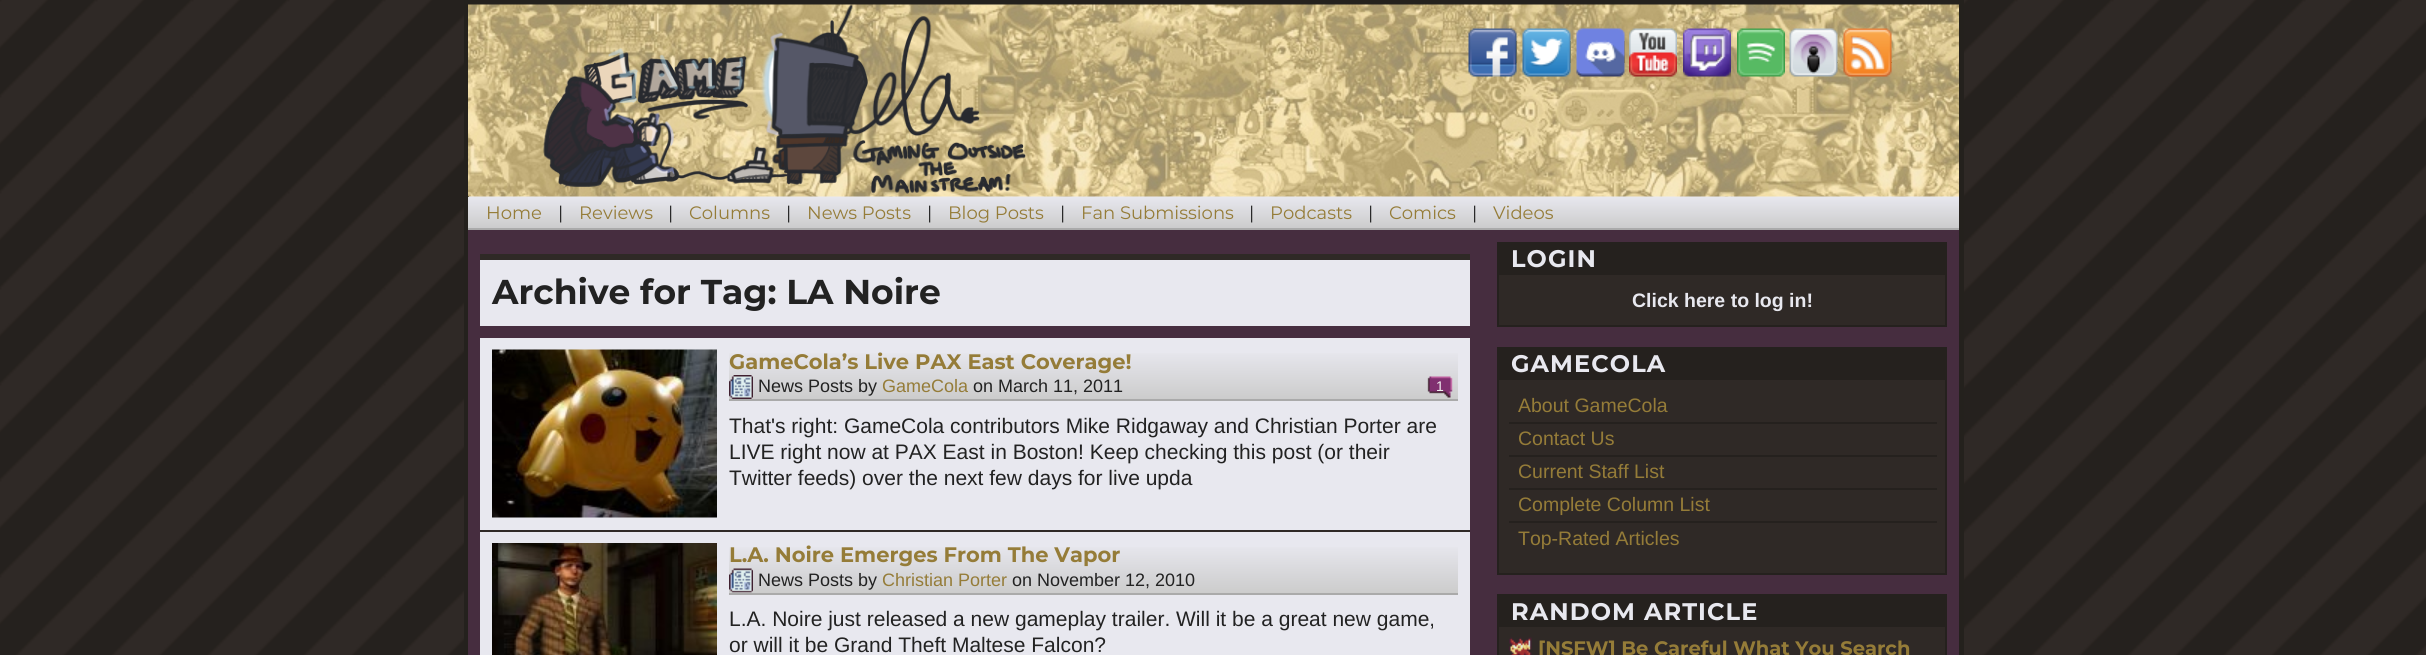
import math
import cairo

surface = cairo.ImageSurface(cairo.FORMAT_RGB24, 2426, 655)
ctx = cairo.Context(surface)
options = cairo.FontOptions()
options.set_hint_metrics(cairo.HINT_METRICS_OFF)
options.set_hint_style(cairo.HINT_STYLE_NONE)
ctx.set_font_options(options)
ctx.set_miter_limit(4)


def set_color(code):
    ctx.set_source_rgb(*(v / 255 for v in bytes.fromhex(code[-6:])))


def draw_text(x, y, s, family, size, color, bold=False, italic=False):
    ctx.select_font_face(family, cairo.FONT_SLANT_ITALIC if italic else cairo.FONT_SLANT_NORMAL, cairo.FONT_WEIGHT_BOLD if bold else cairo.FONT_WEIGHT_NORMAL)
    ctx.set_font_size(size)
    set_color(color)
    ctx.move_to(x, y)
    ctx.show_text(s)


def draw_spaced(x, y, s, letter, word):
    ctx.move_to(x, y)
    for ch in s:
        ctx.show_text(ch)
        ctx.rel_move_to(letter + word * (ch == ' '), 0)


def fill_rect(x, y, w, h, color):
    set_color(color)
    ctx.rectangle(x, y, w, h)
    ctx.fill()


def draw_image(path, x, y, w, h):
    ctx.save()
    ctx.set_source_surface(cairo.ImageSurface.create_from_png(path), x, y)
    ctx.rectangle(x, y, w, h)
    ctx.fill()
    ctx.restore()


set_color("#ffffff")
ctx.paint()
draw_image("assets/img1.png", 0, 0, 2426, 655)
fill_rect(469, 196, 1490, 1, "#e8e8ef")
ctx.rectangle(466.5, 2.5, 1495, 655)
set_color("#24211d")
ctx.set_line_width(5)
ctx.stroke()
draw_image("assets/img2.png", 468, 4, 1491, 193)
draw_image("assets/img3.png", 543, 4, 483, 190)
set_color("#957c38")
ctx.new_path()
ctx.move_to(1469, 62)
ctx.line_to(1469, 63)
ctx.line_to(1517, 63)
ctx.line_to(1517, 41)
ctx.line_to(1516, 41)
ctx.line_to(1516, 62)
ctx.close_path()
ctx.fill()
draw_image("assets/img4.png", 1468, 28, 49, 49)
ctx.new_path()
ctx.move_to(1523, 62)
ctx.line_to(1523, 63)
ctx.line_to(1571, 63)
ctx.line_to(1571, 41)
ctx.line_to(1570, 41)
ctx.line_to(1570, 62)
ctx.close_path()
ctx.fill()
draw_image("assets/img5.png", 1522, 28, 49, 49)
ctx.new_path()
ctx.move_to(1577, 62)
ctx.line_to(1577, 63)
ctx.line_to(1625, 63)
ctx.line_to(1625, 41)
ctx.line_to(1624, 41)
ctx.line_to(1624, 62)
ctx.close_path()
ctx.fill()
draw_image("assets/img6.png", 1576, 28, 49, 49)
draw_image("assets/img7.png", 1629, 28, 48, 49)
draw_image("assets/img8.png", 1683, 28, 48, 49)
draw_image("assets/img9.png", 1737, 28, 48, 49)
ctx.new_path()
ctx.move_to(1790, 62)
ctx.line_to(1790, 63)
ctx.line_to(1838, 63)
ctx.line_to(1838, 41)
ctx.line_to(1838, 62)
ctx.close_path()
ctx.fill()
draw_image("assets/img10.png", 1789, 28, 49, 49)
ctx.new_path()
ctx.move_to(1844, 62)
ctx.line_to(1844, 63)
ctx.line_to(1892, 63)
ctx.line_to(1892, 41)
ctx.line_to(1892, 62)
ctx.close_path()
ctx.fill()
draw_image("assets/img11.png", 1843, 28, 49, 49)
gradient = cairo.LinearGradient(1214, 196, 1214, 228)
gradient.add_color_stop_rgba(0, 0.91, 0.91, 0.937, 1)
gradient.add_color_stop_rgba(1, 0.8, 0.8, 0.8, 1)
ctx.set_source(gradient)
ctx.rectangle(468, 197, 1491, 31)
ctx.fill()
fill_rect(468, 228, 1491, 2, "#aaaaaa")
draw_text(486, 219, "Home", "Montserrat", 18, "#957c38")
draw_text(558, 219, "|", "Montserrat", 18, "#222222")
draw_text(579, 219, "Reviews", "Montserrat", 18, "#957c38")
draw_text(668, 219, "|", "Montserrat", 18, "#222222")
draw_text(689, 219, "Columns", "Montserrat", 18, "#957c38")
draw_text(786, 219, "|", "Montserrat", 18, "#222222")
draw_text(807, 219, "News Posts", "Montserrat", 18, "#957c38")
draw_text(927, 219, "|", "Montserrat", 18, "#222222")
draw_text(948, 219, "Blog Posts", "Montserrat", 18, "#957c38")
draw_text(1060, 219, "|", "Montserrat", 18, "#222222")
draw_text(1081, 219, "Fan Submissions", "Montserrat", 18, "#957c38")
draw_text(1249, 219, "|", "Montserrat", 18, "#222222")
draw_text(1270, 219, "Podcasts", "Montserrat", 18, "#957c38")
draw_text(1368, 219, "|", "Montserrat", 18, "#222222")
draw_text(1389, 219, "Comics", "Montserrat", 18, "#957c38")
draw_text(1472, 219, "|", "Montserrat", 18, "#222222")
draw_text(1493, 219, "Videos", "Montserrat", 18, "#957c38")
fill_rect(468, 230, 1491, 425, "#462d3f")
fill_rect(480, 260, 990, 66, "#e8e8ef")
fill_rect(480, 254, 990, 6, "#2f2926")
draw_text(492, 304, "Archive for Tag: LA Noire", "Montserrat", 34.5, "#222222", bold=True)
fill_rect(480, 338, 990, 317, "#e8e8ef")
fill_rect(480, 530, 990, 2, "#2f2926")
draw_image("assets/img12.png", 492, 349, 225, 169)
gradient = cairo.LinearGradient(1094, 349, 1094, 399)
gradient.add_color_stop_rgba(0, 0.91, 0.91, 0.937, 1)
gradient.add_color_stop_rgba(1, 0.8, 0.8, 0.8, 1)
ctx.set_source(gradient)
ctx.rectangle(729, 353, 729, 46)
ctx.fill()
fill_rect(729, 399, 729, 2, "#aaaaaa")
draw_text(729, 369, "GameCola’s Live PAX East Coverage!", "Montserrat", 21, "#957c38", bold=True)
draw_image("assets/img13.png", 729, 375, 24, 24)
draw_text(758, 392, "News Posts by", "Liberation Sans", 18, "#222222")
draw_text(882, 392, "GameCola", "Liberation Sans", 18, "#957c38")
draw_text(973, 392, "on March 11, 2011", "Liberation Sans", 18, "#222222")
draw_image("assets/img14.png", 1427, 376, 26, 22)
draw_text(1436, 391, "1", "Liberation Sans", 14, "#efefef")
draw_text(729, 433, "That's right: GameCola contributors Mike Ridgaway and Christian Porter are", "Liberation Sans", 21, "#222222")
draw_text(729, 459, "LIVE right now at PAX East in Boston! Keep checking this post (or their", "Liberation Sans", 21, "#222222")
draw_text(729, 485, "Twitter feeds) over the next few days for live upda", "Liberation Sans", 21, "#222222")
draw_image("assets/img15.png", 492, 543, 225, 112)
gradient = cairo.LinearGradient(1094, 543, 1094, 593)
gradient.add_color_stop_rgba(0, 0.91, 0.91, 0.937, 1)
gradient.add_color_stop_rgba(1, 0.8, 0.8, 0.8, 1)
ctx.set_source(gradient)
ctx.rectangle(729, 547, 729, 46)
ctx.fill()
fill_rect(729, 593, 729, 2, "#aaaaaa")
draw_text(729, 562, "L.A. Noire Emerges From The Vapor", "Montserrat", 21, "#957c38", bold=True)
draw_image("assets/img16.png", 729, 568, 24, 25)
draw_text(758, 586, "News Posts by", "Liberation Sans", 18, "#222222")
draw_text(882, 586, "Christian Porter", "Liberation Sans", 18, "#957c38")
draw_text(1012, 586, "on November 12, 2010", "Liberation Sans", 18, "#222222")
draw_text(729, 626, "L.A. Noire just released a new gameplay trailer. Will it be a great new game,", "Liberation Sans", 21, "#222222")
draw_text(729, 652, "or will it be Grand Theft Maltese Falcon?", "Liberation Sans", 21, "#222222")
fill_rect(1499, 275, 446, 50, "#2f2926")
ctx.rectangle(1498, 243, 448, 83)
set_color("#25211e")
ctx.set_line_width(2)
ctx.stroke()
fill_rect(1499, 244, 446, 31, "#25211e")
ctx.select_font_face("Montserrat", cairo.FONT_SLANT_NORMAL, cairo.FONT_WEIGHT_BOLD)
ctx.set_font_size(24)
set_color("#e8e8ef")
draw_spaced(1511, 267, "LOGIN", 1.1, 0)
draw_text(1632, 307, "Click here to log in!", "Liberation Sans", 19.5, "#e8e8ef", bold=True)
fill_rect(1499, 380, 446, 193, "#2f2926")
ctx.rectangle(1498, 348, 448, 226)
set_color("#25211e")
ctx.stroke()
fill_rect(1499, 349, 446, 31, "#25211e")
ctx.select_font_face("Montserrat", cairo.FONT_SLANT_NORMAL, cairo.FONT_WEIGHT_BOLD)
ctx.set_font_size(24)
set_color("#e8e8ef")
draw_spaced(1511, 372, "GAMECOLA", 1.1, 0)
fill_rect(1509, 422, 428, 2, "#25211e")
draw_text(1518, 412, "About GameCola", "Liberation Sans", 19.5, "#957c38")
fill_rect(1509, 455, 428, 2, "#25211e")
draw_text(1518, 445, "Contact Us", "Liberation Sans", 19.5, "#957c38")
fill_rect(1509, 488, 428, 2, "#25211e")
draw_text(1518, 478, "Current Staff List", "Liberation Sans", 19.5, "#957c38")
fill_rect(1509, 521, 428, 2, "#25211e")
draw_text(1518, 511, "Complete Column List", "Liberation Sans", 19.5, "#957c38")
draw_text(1518, 545, "Top-Rated Articles", "Liberation Sans", 19.5, "#957c38")
fill_rect(1499, 627, 446, 28, "#2f2926")
ctx.rectangle(1498, 595, 448, 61)
set_color("#25211e")
ctx.stroke()
fill_rect(1499, 596, 446, 31, "#25211e")
ctx.select_font_face("Montserrat", cairo.FONT_SLANT_NORMAL, cairo.FONT_WEIGHT_BOLD)
ctx.set_font_size(24)
set_color("#e8e8ef")
draw_spaced(1511, 620, "RANDOM ARTICLE", 1.1, 0)
draw_image("assets/img17.png", 1509, 637, 23, 18)
draw_text(1538, 655, "[NSFW] Be Careful What You Search", "Montserrat", 19.5, "#957c38", bold=True)
surface.write_to_png("output.png")
